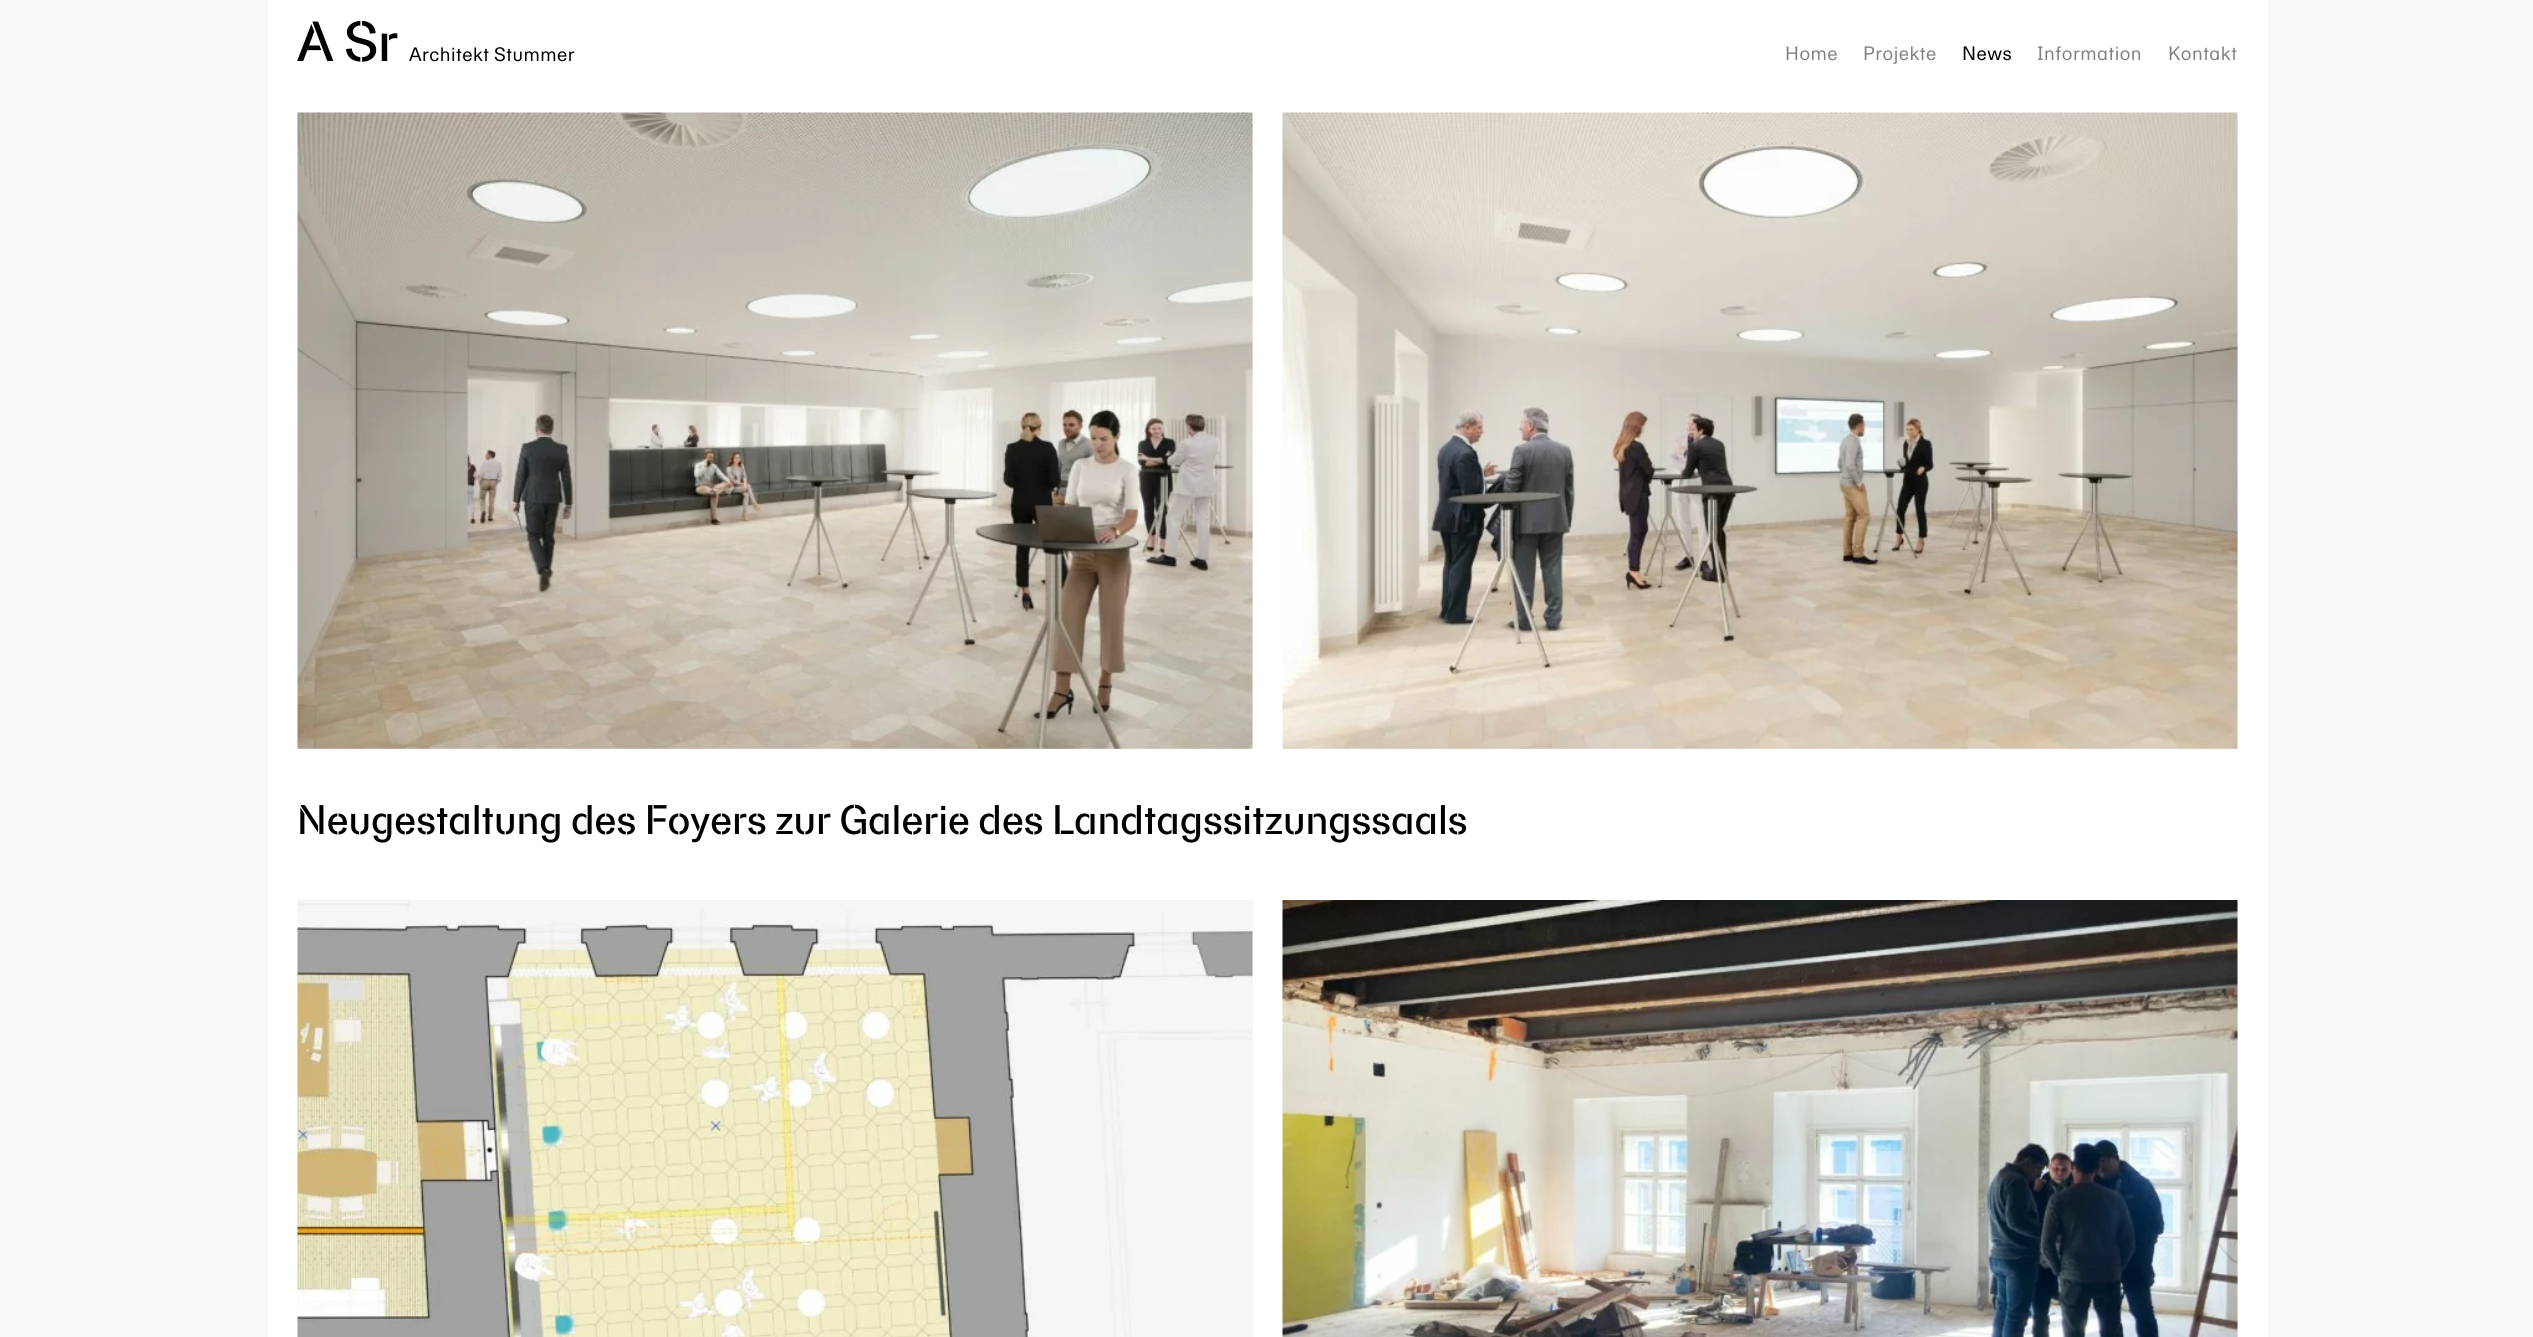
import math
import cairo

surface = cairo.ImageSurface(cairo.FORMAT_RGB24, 2533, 1337)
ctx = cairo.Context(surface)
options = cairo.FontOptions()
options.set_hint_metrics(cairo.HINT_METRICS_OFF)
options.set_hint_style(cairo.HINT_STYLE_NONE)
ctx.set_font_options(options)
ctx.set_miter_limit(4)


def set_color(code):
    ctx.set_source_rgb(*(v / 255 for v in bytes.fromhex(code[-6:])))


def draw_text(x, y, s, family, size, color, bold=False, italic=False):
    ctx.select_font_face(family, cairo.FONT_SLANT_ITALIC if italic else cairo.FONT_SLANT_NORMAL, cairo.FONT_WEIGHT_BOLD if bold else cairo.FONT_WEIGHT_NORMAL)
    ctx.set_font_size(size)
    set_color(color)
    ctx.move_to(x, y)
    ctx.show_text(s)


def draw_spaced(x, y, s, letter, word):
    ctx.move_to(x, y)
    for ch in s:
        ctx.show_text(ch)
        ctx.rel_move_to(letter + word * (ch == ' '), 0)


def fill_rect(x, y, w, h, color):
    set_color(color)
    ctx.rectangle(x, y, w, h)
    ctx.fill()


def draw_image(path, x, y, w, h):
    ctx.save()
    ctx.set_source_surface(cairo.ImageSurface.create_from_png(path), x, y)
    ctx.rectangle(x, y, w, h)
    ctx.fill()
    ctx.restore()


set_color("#f9f9f9")
ctx.paint()
fill_rect(268, 0, 2000, 1337, "#ffffff")
ctx.select_font_face("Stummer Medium")
ctx.set_font_size(58)
set_color("#000000")
draw_spaced(297, 61, "A Sr", -0.5, 0)
ctx.select_font_face("Stummer")
ctx.set_font_size(20)
draw_spaced(409, 61, "Architekt Stummer", 0.5, 0)
set_color("#808080")
draw_spaced(1785, 60, "Home", 0.5, 0)
draw_spaced(1863, 60, "Projekte", 0.5, 0)
set_color("#000000")
draw_spaced(1962, 60, "News", 0.5, 0)
set_color("#808080")
draw_spaced(2037, 60, "Information", 0.5, 0)
draw_spaced(2168, 60, "Kontakt", 0.5, 0)
fill_rect(298, 113, 955, 636, "#f4f4f4")
draw_image("assets/img1.png", 297, 112, 956, 637)
fill_rect(1283, 113, 955, 636, "#f4f4f4")
draw_image("assets/img2.png", 1282, 112, 956, 637)
draw_text(297, 834, "Neugestaltung des Foyers zur Galerie des Landtagssitzungssaals", "Stummer Medium", 42.5, "#000000")
fill_rect(1252, 900, 1, 437, "#f4f4f4")
draw_image("assets/img3.png", 297, 900, 956, 437)
fill_rect(2237, 900, 1, 437, "#f4f4f4")
draw_image("assets/img4.png", 1282, 900, 956, 437)
surface.write_to_png("output.png")
